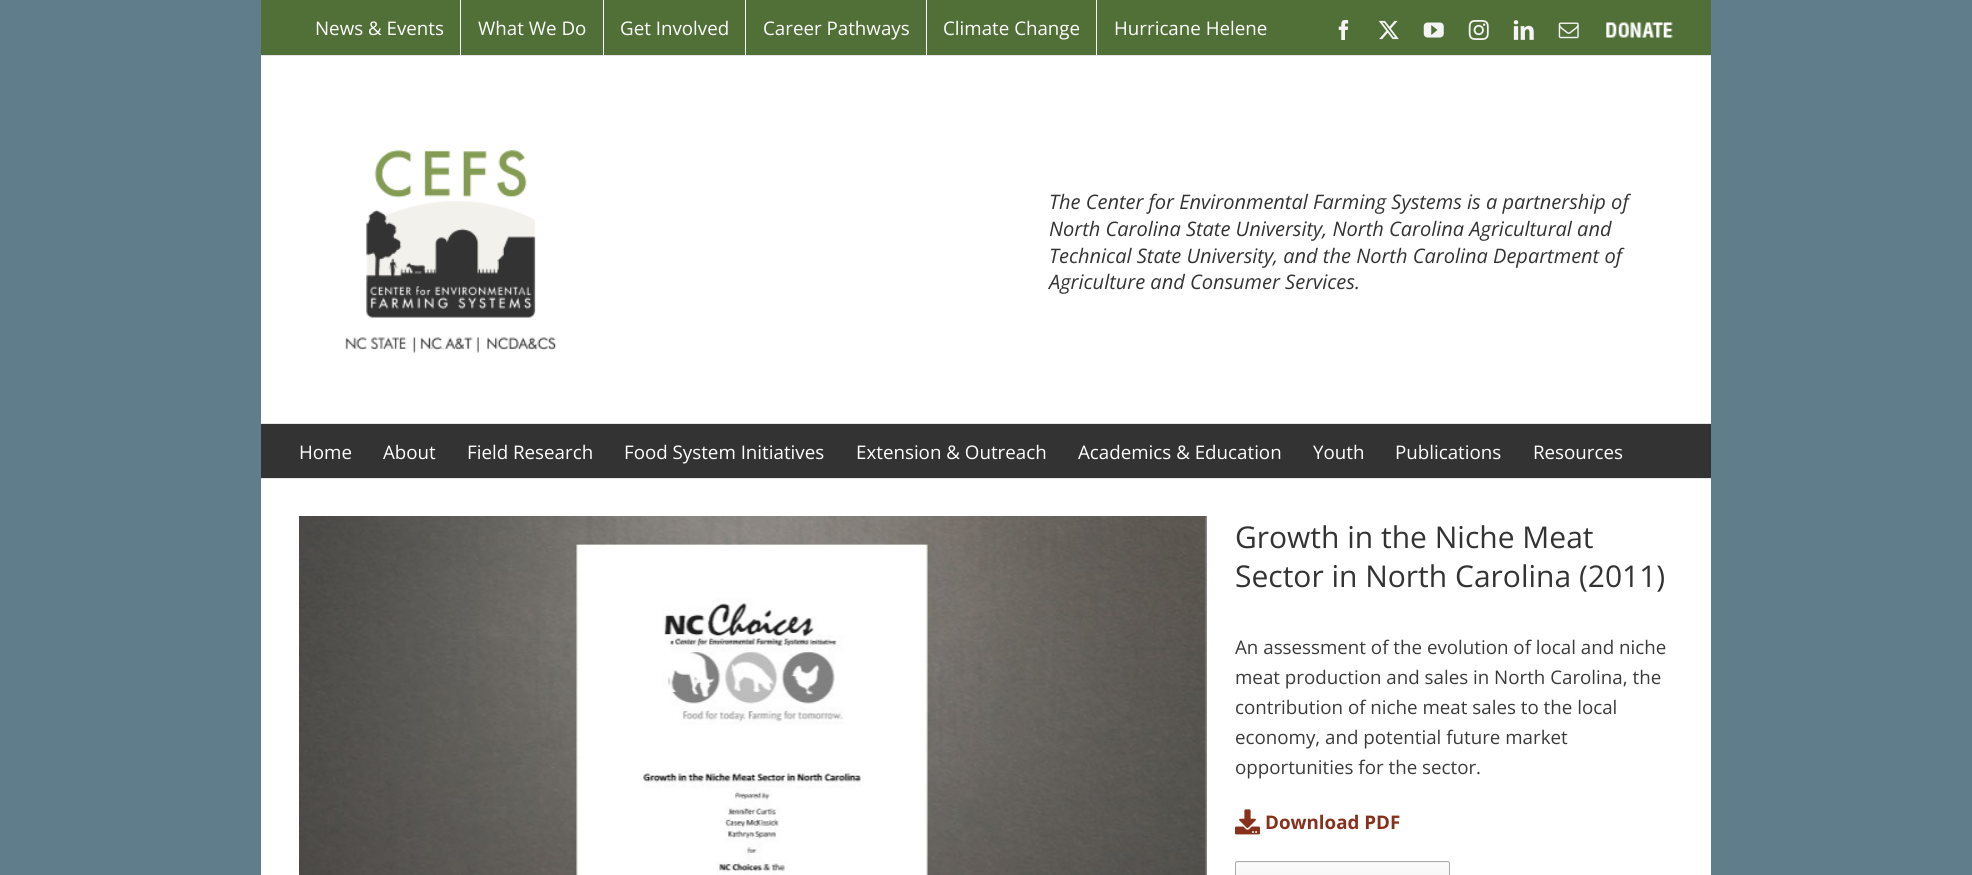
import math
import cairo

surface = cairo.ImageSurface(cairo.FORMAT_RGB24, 1972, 875)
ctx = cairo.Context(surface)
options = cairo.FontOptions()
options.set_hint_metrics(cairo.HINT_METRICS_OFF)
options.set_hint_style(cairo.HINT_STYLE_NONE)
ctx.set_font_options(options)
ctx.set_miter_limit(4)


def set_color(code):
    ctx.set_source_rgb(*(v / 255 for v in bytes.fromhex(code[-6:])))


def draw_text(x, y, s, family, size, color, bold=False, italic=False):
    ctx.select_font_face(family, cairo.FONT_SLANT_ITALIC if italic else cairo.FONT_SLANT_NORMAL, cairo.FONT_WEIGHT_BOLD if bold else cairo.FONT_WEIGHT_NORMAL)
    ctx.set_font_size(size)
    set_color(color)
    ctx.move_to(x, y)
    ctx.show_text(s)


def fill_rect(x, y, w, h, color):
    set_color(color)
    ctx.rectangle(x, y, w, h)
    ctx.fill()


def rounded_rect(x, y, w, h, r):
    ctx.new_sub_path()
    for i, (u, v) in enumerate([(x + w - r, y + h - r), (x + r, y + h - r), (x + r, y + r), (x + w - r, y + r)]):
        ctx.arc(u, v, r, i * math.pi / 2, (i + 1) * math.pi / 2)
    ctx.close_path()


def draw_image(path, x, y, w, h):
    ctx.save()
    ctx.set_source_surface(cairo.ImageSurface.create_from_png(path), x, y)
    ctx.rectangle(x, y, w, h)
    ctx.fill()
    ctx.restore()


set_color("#607d8b")
ctx.paint()
fill_rect(261, 0, 1450, 55, "#517038")
fill_rect(261, 55, 1450, 1, "#e5e5e5")
draw_text(315, 35, "News & Events", "Open Sans", 18.75, "#ffffff")
fill_rect(460, 0, 1, 55, "#ffffff")
draw_text(478, 35, "What We Do", "Open Sans", 18.75, "#ffffff")
fill_rect(603, 0, 1, 55, "#ffffff")
draw_text(620, 35, "Get Involved", "Open Sans", 18.75, "#ffffff")
fill_rect(745, 0, 1, 55, "#ffffff")
draw_text(763, 35, "Career Pathways", "Open Sans", 18.75, "#ffffff")
fill_rect(926, 0, 1, 55, "#ffffff")
draw_text(943, 35, "Climate Change", "Open Sans", 18.75, "#ffffff")
fill_rect(1096, 0, 1, 55, "#ffffff")
draw_text(1114, 35, "Hurricane Helene", "Open Sans", 18.75, "#ffffff")
draw_image("assets/img1.png", 1338, 20, 11, 20)
draw_image("assets/img2.png", 1378, 20, 21, 20)
draw_image("assets/img3.png", 1423, 22, 21, 16)
draw_image("assets/img4.png", 1468, 20, 21, 20)
draw_image("assets/img5.png", 1513, 20, 21, 20)
draw_image("assets/img6.png", 1558, 22, 21, 17)
draw_image("assets/img7.png", 1606, 22, 67, 16)
fill_rect(261, 56, 1450, 367, "#ffffff")
fill_rect(261, 423, 1450, 1, "#e5e5e5")
draw_image("assets/img8.png", 345, 149, 212, 204)
draw_text(1049, 209, "The Center for Environmental Farming Systems is a partnership of", "Open Sans", 20, "#333333", italic=True)
draw_text(1049, 236, "North Carolina State University, North Carolina Agricultural and", "Open Sans", 20, "#333333", italic=True)
draw_text(1049, 263, "Technical State University, and the North Carolina Department of", "Open Sans", 20, "#333333", italic=True)
draw_text(1049, 289, "Agriculture and Consumer Services.", "Open Sans", 20, "#333333", italic=True)
fill_rect(261, 424, 1450, 54, "#333333")
fill_rect(261, 478, 1450, 1, "#e5e5e5")
draw_text(299, 459, "Home", "Open Sans", 18.75, "#ffffff")
draw_text(383, 459, "About", "Open Sans", 18.75, "#ffffff")
draw_text(467, 459, "Field Research", "Open Sans", 18.75, "#ffffff")
draw_text(624, 459, "Food System Initiatives", "Open Sans", 18.75, "#ffffff")
draw_text(856, 459, "Extension & Outreach", "Open Sans", 18.75, "#ffffff")
draw_text(1078, 459, "Academics & Education", "Open Sans", 18.75, "#ffffff")
draw_text(1313, 459, "Youth", "Open Sans", 18.75, "#ffffff")
draw_text(1395, 459, "Publications", "Open Sans", 18.75, "#ffffff")
draw_text(1533, 459, "Resources", "Open Sans", 18.75, "#ffffff")
fill_rect(261, 479, 1450, 396, "#ffffff")
draw_image("assets/img9.png", 299, 516, 908, 359)
draw_text(1235, 548, "Growth in the Niche Meat", "Open Sans", 30, "#333333")
draw_text(1235, 587, "Sector in North Carolina (2011)", "Open Sans", 30, "#333333")
draw_text(1235, 654, "An assessment of the evolution of local and niche", "Open Sans", 18.75, "#3a3a3a")
draw_text(1235, 684, "meat production and sales in North Carolina, the", "Open Sans", 18.75, "#3a3a3a")
draw_text(1235, 714, "contribution of niche meat sales to the local", "Open Sans", 18.75, "#3a3a3a")
draw_text(1235, 744, "economy, and potential future market", "Open Sans", 18.75, "#3a3a3a")
draw_text(1235, 774, "opportunities for the sector.", "Open Sans", 18.75, "#3a3a3a")
draw_image("assets/img10.png", 1235, 809, 25, 26)
draw_text(1265, 829, "Download PDF", "Open Sans", 18.75, "#87311c", bold=True)
ctx.save()
rounded_rect(1235, 861, 215, 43, 2.5)
ctx.clip()
gradient = cairo.LinearGradient(1343, 863, 1343, 823)
gradient.add_color_stop_rgba(0, 0.941, 0.941, 0.941, 1)
gradient.add_color_stop_rgba(1, 0.984, 0.984, 0.984, 1)
ctx.set_source(gradient)
ctx.rectangle(1235, 861, 215, 2)
ctx.fill()
ctx.restore()
gradient = cairo.LinearGradient(1343, 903, 1343, 863)
gradient.add_color_stop_rgba(0, 0.941, 0.941, 0.941, 1)
gradient.add_color_stop_rgba(1, 0.984, 0.984, 0.984, 1)
ctx.set_source(gradient)
ctx.rectangle(1235, 863, 215, 12)
ctx.fill()
rounded_rect(1235.5, 861.5, 214, 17, 2)
set_color("#ababab")
ctx.set_line_width(1)
ctx.stroke()
surface.write_to_png("output.png")
